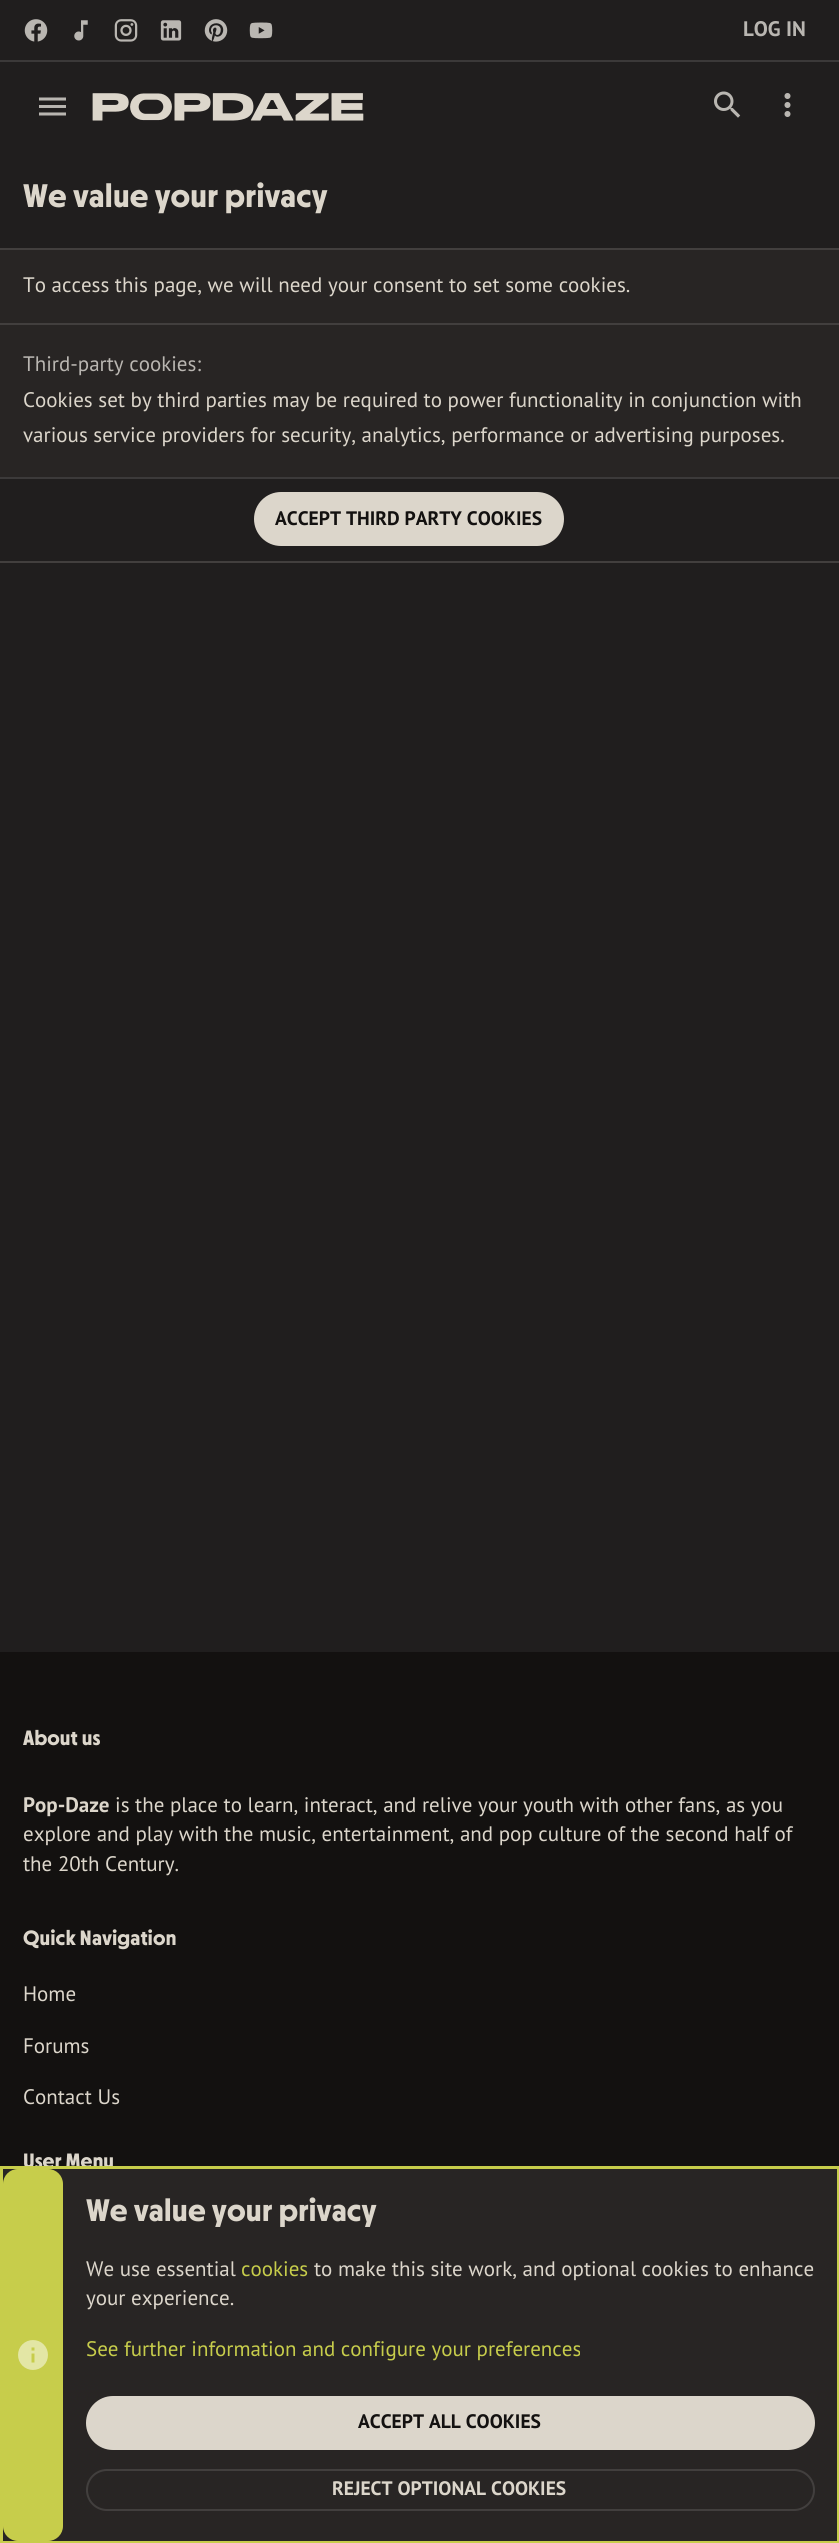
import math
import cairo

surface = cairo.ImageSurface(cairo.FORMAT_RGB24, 839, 2543)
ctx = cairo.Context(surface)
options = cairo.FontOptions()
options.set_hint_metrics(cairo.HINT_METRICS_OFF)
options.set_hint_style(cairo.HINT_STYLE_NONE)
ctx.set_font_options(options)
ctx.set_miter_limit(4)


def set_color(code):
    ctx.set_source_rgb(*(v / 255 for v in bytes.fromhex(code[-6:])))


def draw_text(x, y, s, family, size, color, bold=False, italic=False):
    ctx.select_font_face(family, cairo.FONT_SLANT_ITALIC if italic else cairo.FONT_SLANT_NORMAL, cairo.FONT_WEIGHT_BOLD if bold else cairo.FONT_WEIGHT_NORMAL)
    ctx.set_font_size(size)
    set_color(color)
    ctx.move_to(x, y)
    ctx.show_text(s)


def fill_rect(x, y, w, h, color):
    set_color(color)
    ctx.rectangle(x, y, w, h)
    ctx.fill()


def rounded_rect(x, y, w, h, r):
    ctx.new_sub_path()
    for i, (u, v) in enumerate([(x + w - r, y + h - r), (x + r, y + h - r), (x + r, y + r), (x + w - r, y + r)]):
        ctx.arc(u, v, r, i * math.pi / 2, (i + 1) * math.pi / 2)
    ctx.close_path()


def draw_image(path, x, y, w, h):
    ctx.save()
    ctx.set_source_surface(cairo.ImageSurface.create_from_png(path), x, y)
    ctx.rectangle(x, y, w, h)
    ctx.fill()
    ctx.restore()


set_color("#201e1e")
ctx.paint()
fill_rect(0, 60, 839, 2, "#3b3939")
draw_image("assets/img1.png", 24, 19, 24, 23)
draw_image("assets/img2.png", 74, 20, 14, 21)
draw_image("assets/img3.png", 114, 19, 24, 23)
draw_image("assets/img4.png", 160, 20, 22, 21)
draw_image("assets/img5.png", 204, 19, 24, 23)
draw_image("assets/img6.png", 249, 22, 24, 17)
draw_text(743, 36, "LOG IN", "PT Sans", 21, "#b9b6b1", bold=True)
draw_image("assets/img7.png", 39, 97, 27, 19)
draw_image("assets/img8.png", 92, 93, 272, 28)
draw_image("assets/img9.png", 714, 91, 27, 27)
draw_image("assets/img10.png", 784, 93, 7, 24)
draw_text(23, 207, "We value your privacy", "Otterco", 33, "#dcd6cb", bold=True)
fill_rect(0, 250, 839, 227, "#282524")
fill_rect(0, 248, 839, 2, "#423f3e")
fill_rect(0, 561, 839, 2, "#423f3e")
draw_text(23, 292, "To access this page, we will need your consent to set some cookies.", "PT Sans", 21, "#dcd6cb")
fill_rect(0, 323, 839, 2, "#423f3e")
draw_text(23, 371, "Third-party cookies:", "PT Sans", 21, "#b9b6b1")
draw_text(23, 407, "Cookies set by third parties may be required to power functionality in conjunction with", "PT Sans", 21, "#dcd6cb")
draw_text(23, 442, "various service providers for security, analytics, performance or advertising purposes.", "PT Sans", 21, "#dcd6cb")
fill_rect(0, 477, 839, 2, "#3c3a3a")
set_color("#dcd6cb")
rounded_rect(254, 492, 310, 54, 27)
ctx.fill()
draw_text(275, 525, "ACCEPT THIRD PARTY COOKIES", "PT Sans", 19.5, "#131110", bold=True)
fill_rect(0, 1652, 839, 514, "#131110")
draw_text(23, 1745, "About us", "Otterco", 21, "#dcd6cb", bold=True)
draw_text(23, 1812, "Pop-Daze", "PT Sans", 21, "#dcd6cb", bold=True)
draw_text(115, 1812, "is the place to learn, interact, and relive your youth with other fans, as you", "PT Sans", 21, "#dcd6cb")
draw_text(23, 1841, "explore and play with the music, entertainment, and pop culture of the second half of", "PT Sans", 21, "#dcd6cb")
draw_text(23, 1871, "the 20th Century.", "PT Sans", 21, "#dcd6cb")
draw_text(23, 1945, "Quick Navigation", "Otterco", 21, "#dcd6cb", bold=True)
draw_text(23, 2001, "Home", "PT Sans", 21, "#dcd6cb")
draw_text(23, 2053, "Forums", "PT Sans", 21, "#dcd6cb")
draw_text(23, 2104, "Contact Us", "PT Sans", 21, "#dcd6cb")
draw_text(23, 2168, "User Menu", "Otterco", 21, "#dcd6cb", bold=True)
set_color("#282524")
ctx.rectangle(1.5, 2167.5, 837, 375)
ctx.fill_preserve()
set_color("#c7cd4b")
ctx.set_line_width(3)
ctx.stroke()
rounded_rect(3, 2169, 60, 372, 15)
ctx.fill()
draw_image("assets/img11.png", 18, 2340, 30, 30)
draw_text(86, 2221, "We value your privacy", "Otterco", 31.5, "#dcd6cb", bold=True)
draw_text(86, 2276, "We use essential", "PT Sans", 21, "#dcd6cb")
draw_text(241, 2276, "cookies", "PT Sans", 21, "#c7cd4b")
draw_text(314, 2276, "to make this site work, and optional cookies to enhance", "PT Sans", 21, "#dcd6cb")
draw_text(86, 2305, "your experience.", "PT Sans", 21, "#dcd6cb")
draw_text(86, 2356, "See further information and configure your preferences", "PT Sans", 21, "#c7cd4b")
set_color("#dcd6cb")
rounded_rect(86, 2396, 729, 54, 27)
ctx.fill()
draw_text(358, 2428, "ACCEPT ALL COOKIES", "PT Sans", 19.5, "#131110", bold=True)
rounded_rect(87, 2470, 727, 40, 20)
set_color("#423f3e")
ctx.set_line_width(2)
ctx.stroke()
draw_text(332, 2495, "REJECT OPTIONAL COOKIES", "PT Sans", 19.5, "#dcd6cb", bold=True)
surface.write_to_png("output.png")
